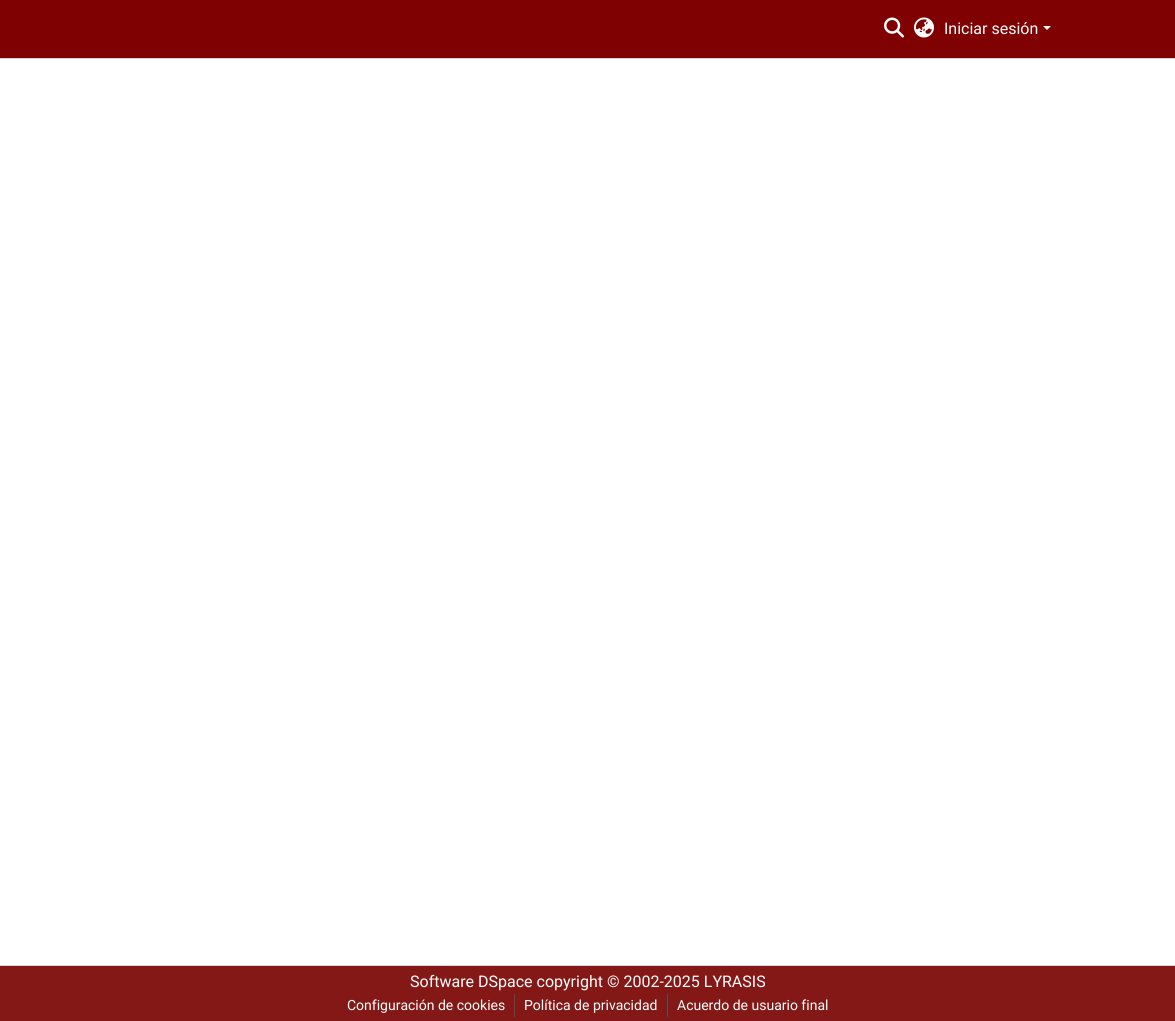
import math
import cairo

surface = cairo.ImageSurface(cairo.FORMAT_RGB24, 1175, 1021)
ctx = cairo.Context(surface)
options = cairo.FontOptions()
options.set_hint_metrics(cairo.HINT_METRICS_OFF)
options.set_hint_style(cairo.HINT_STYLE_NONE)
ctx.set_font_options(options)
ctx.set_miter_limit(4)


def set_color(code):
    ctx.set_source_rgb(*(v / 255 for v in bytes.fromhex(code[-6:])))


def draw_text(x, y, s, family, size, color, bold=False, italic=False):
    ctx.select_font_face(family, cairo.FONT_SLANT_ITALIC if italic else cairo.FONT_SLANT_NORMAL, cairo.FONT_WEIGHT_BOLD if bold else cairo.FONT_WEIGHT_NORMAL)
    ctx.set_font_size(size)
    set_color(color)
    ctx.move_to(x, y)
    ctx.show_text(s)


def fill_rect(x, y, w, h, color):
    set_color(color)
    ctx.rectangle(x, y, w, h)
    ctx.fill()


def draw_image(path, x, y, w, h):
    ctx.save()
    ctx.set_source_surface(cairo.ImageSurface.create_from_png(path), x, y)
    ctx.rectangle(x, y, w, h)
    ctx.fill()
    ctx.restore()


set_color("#ffffff")
ctx.paint()
fill_rect(0, 58, 1175, 1, "#ced4da")
fill_rect(0, 0, 1175, 58, "#800101")
draw_image("assets/img1.png", 884, 17, 20, 21)
draw_image("assets/img2.png", 914, 17, 20, 21)
draw_text(944, 34, "Iniciar sesión", "Roboto", 16, "#ffffff")
ctx.new_path()
ctx.move_to(1043, 26)
ctx.line_to(1051, 26)
ctx.line_to(1047, 30)
ctx.close_path()
ctx.fill()
fill_rect(0, 966, 1175, 55, "#841816")
fill_rect(0, 965, 1175, 1, "#ced4da")
draw_text(410, 987, "Software DSpace copyright © 2002-2025 LYRASIS", "Roboto", 16, "#ffffff")
draw_text(347, 1010, "Configuración de cookies", "Roboto", 14, "#ffffff")
fill_rect(514, 994, 1, 23, "#495057")
draw_text(524, 1010, "Política de privacidad", "Roboto", 14, "#ffffff")
fill_rect(667, 994, 1, 23, "#495057")
draw_text(677, 1010, "Acuerdo de usuario final", "Roboto", 14, "#ffffff")
surface.write_to_png("output.png")
